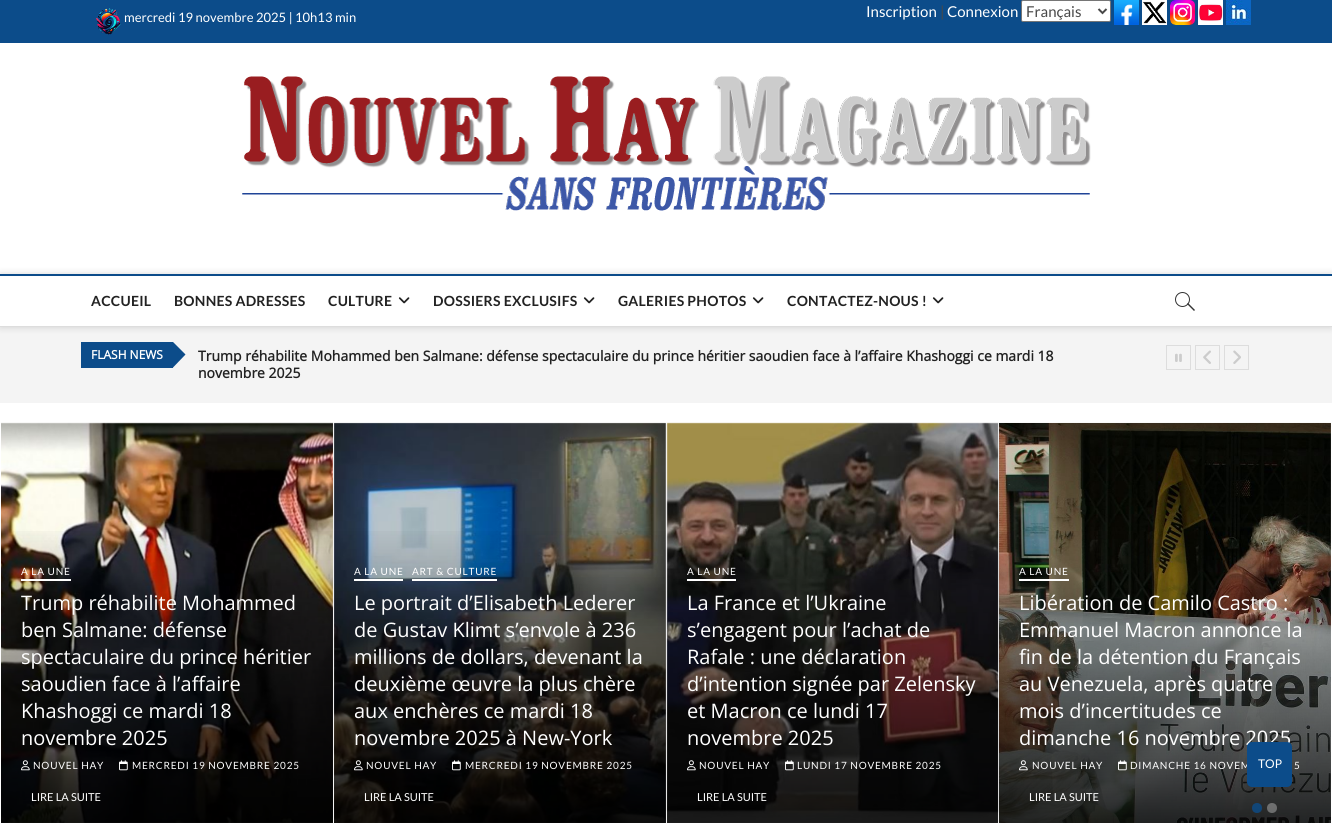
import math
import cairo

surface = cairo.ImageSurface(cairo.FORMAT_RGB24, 1332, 827)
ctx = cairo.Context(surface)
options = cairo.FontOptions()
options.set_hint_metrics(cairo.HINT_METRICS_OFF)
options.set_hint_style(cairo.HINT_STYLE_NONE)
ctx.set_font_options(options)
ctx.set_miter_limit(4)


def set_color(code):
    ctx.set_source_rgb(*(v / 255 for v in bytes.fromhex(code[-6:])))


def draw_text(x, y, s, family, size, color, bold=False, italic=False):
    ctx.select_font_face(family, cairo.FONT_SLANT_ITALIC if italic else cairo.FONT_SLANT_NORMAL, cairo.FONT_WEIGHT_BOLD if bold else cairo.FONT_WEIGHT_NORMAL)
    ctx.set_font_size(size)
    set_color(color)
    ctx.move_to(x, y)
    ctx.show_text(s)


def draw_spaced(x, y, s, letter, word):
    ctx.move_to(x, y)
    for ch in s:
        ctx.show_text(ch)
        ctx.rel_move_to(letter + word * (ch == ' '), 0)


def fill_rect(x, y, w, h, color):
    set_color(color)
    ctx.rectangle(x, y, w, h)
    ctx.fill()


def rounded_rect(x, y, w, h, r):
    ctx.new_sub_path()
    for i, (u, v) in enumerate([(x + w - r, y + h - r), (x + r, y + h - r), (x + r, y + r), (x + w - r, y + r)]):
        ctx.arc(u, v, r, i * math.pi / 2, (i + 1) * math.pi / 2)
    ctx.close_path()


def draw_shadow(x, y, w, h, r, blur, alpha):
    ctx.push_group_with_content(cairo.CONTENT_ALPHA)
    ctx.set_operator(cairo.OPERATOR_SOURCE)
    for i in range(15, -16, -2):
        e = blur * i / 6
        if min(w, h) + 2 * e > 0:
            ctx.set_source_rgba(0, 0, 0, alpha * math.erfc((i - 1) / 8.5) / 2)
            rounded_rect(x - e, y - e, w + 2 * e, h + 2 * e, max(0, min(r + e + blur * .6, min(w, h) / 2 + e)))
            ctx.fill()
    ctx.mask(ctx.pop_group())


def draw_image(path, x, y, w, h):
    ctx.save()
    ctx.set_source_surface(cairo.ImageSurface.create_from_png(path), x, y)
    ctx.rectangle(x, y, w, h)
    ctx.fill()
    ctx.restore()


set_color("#ffffff")
ctx.paint()
fill_rect(0, 0, 1332, 43, "#0c4c8a")
draw_image("assets/img1.png", 96, 8, 25, 27)
draw_text(124, 22, "mercredi 19 novembre 2025 | 10h13 min", "Lato", 13, "#ffffff")
draw_text(866, 17, "Inscription", "Lato", 15, "#ffffff")
draw_text(940, 17, "|", "Lato", 15, "#484848")
draw_text(947, 17, "Connexion", "Lato", 15, "#ffffff")
rounded_rect(1021.5, 0.5, 89, 21, 1.5)
ctx.fill_preserve()
set_color("#767676")
ctx.set_line_width(1)
ctx.stroke()
ctx.new_path()
ctx.move_to(1098.5, 9)
ctx.line_to(1102.5, 13)
ctx.line_to(1106.5, 9)
set_color("#484848")
ctx.set_line_width(2)
ctx.stroke()
draw_text(1026, 17, "Français", "Lato", 15, "#484848")
draw_image("assets/img2.png", 1114, 0, 25, 25)
draw_image("assets/img3.png", 1142, 0, 25, 25)
draw_image("assets/img4.png", 1170, 0, 25, 25)
draw_image("assets/img5.png", 1198, 0, 25, 25)
draw_image("assets/img6.png", 1226, 0, 25, 25)
draw_image("assets/img7.png", 242, 76, 849, 135)
fill_rect(0, 327, 1332, 76, "#f4f4f4")
ctx.save()
ctx.set_fill_rule(cairo.FILL_RULE_EVEN_ODD)
ctx.new_path()
ctx.move_to(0, 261)
ctx.line_to(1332, 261)
ctx.line_to(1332, 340)
ctx.line_to(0, 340)
ctx.close_path()
ctx.move_to(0, 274)
ctx.line_to(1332, 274)
ctx.line_to(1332, 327)
ctx.line_to(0, 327)
ctx.close_path()
ctx.clip()
set_color("#000000")
draw_shadow(0, 274, 1332, 53, 0, 4, 0.15)
ctx.restore()
fill_rect(0, 274, 1332, 2, "#0c4c8a")
fill_rect(0, 326, 1332, 1, "#dddddd")
ctx.select_font_face("Lato", cairo.FONT_SLANT_NORMAL, cairo.FONT_WEIGHT_BOLD)
ctx.set_font_size(14)
set_color("#222222")
draw_spaced(91, 306, "ACCUEIL", 0.25, 0)
draw_spaced(174, 306, "BONNES ADRESSES", 0.25, 0)
draw_spaced(328, 306, "CULTURE", 0.25, 0)
draw_image("assets/img8.png", 398, 297, 12, 7)
draw_spaced(433, 306, "DOSSIERS EXCLUSIFS", 0.25, 0)
draw_image("assets/img8.png", 583, 297, 12, 7)
draw_spaced(618, 306, "GALERIES PHOTOS", 0.25, 0)
draw_image("assets/img8.png", 752, 297, 12, 7)
draw_spaced(787, 306, "CONTACTEZ-NOUS !", 0.25, 0)
draw_image("assets/img8.png", 932, 297, 12, 7)
ctx.arc(1182.5, 299.5, 7, 0, 2 * math.pi)
set_color("#333333")
ctx.set_line_width(1)
ctx.stroke()
ctx.new_path()
ctx.move_to(1187, 304)
ctx.line_to(1188, 303)
ctx.line_to(1195, 310)
ctx.line_to(1194, 311)
ctx.close_path()
ctx.fill()
fill_rect(81, 342, 92, 26, "#0c4c8a")
ctx.new_path()
ctx.move_to(173, 342)
ctx.line_to(185.5, 354.5)
ctx.line_to(173, 367.5)
ctx.line_to(160, 354.5)
ctx.close_path()
ctx.fill()
draw_text(91, 359, "FLASH NEWS", "Open Sans", 12, "#ffffff", bold=True)
draw_text(198, 361, "Trump réhabilite Mohammed ben Salmane: défense spectaculaire du prince héritier saoudien face à l’affaire Khashoggi ce mardi 18", "Open Sans", 14, "#222222", bold=True)
draw_text(198, 378, "novembre 2025", "Open Sans", 14, "#222222", bold=True)
ctx.rectangle(1166.5, 345.5, 24, 24)
set_color("#dddddd")
ctx.stroke()
draw_image("assets/img9.png", 1175, 353, 7, 9)
ctx.rectangle(1195.5, 345.5, 24, 24)
ctx.stroke()
draw_image("assets/img10.png", 1203, 350, 8, 14)
ctx.rectangle(1224.5, 345.5, 24, 24)
ctx.stroke()
draw_image("assets/img11.png", 1233, 350, 8, 14)
draw_image("assets/img12.png", 1, 422, 332, 401)
gradient = cairo.LinearGradient(167, 823, 167, 523)
gradient.add_color_stop_rgba(0, 0, 0, 0, 0.8)
gradient.add_color_stop_rgba(1, 0, 0, 0, 0)
ctx.set_source(gradient)
ctx.rectangle(1, 531, 332, 292)
ctx.fill()
ctx.select_font_face("Lato")
ctx.set_font_size(10)
set_color("#ffffff")
draw_spaced(21, 575, "A LA UNE", 0.8, 0)
fill_rect(21, 579, 50, 2, "#ffffff")
draw_text(21, 610, "Trump réhabilite Mohammed", "Open Sans", 20, "#ffffff")
draw_text(21, 637, "ben Salmane: défense", "Open Sans", 20, "#ffffff")
draw_text(21, 664, "spectaculaire du prince héritier", "Open Sans", 20, "#ffffff")
draw_text(21, 691, "saoudien face à l’affaire", "Open Sans", 20, "#ffffff")
draw_text(21, 718, "Khashoggi ce mardi 18", "Open Sans", 20, "#ffffff")
draw_text(21, 745, "novembre 2025", "Open Sans", 20, "#ffffff")
draw_image("assets/img13.png", 21, 760, 9, 11)
ctx.select_font_face("Lato")
ctx.set_font_size(10)
draw_spaced(33, 769, "NOUVEL HAY", 0.8, 0)
draw_image("assets/img14.png", 119, 760, 9, 11)
draw_spaced(132, 769, "MERCREDI 19 NOVEMBRE 2025", 0.8, 0)
draw_text(31, 801, "LIRE LA SUITE", "Lato", 11, "#ffffff")
draw_image("assets/img15.png", 333, 422, 333, 401)
gradient = cairo.LinearGradient(500, 823, 500, 523)
gradient.add_color_stop_rgba(0, 0, 0, 0, 0.8)
gradient.add_color_stop_rgba(1, 0, 0, 0, 0)
ctx.set_source(gradient)
ctx.rectangle(334, 531, 332, 292)
ctx.fill()
ctx.set_font_size(10)
set_color("#ffffff")
draw_spaced(354, 575, "A LA UNE", 0.8, 0)
fill_rect(354, 579, 49, 2, "#ffffff")
draw_spaced(412, 575, "ART & CULTURE", 0.8, 0)
fill_rect(412, 579, 85, 2, "#ffffff")
draw_text(354, 610, "Le portrait d’Elisabeth Lederer", "Open Sans", 20, "#ffffff")
draw_text(354, 637, "de Gustav Klimt s’envole à 236", "Open Sans", 20, "#ffffff")
draw_text(354, 664, "millions de dollars, devenant la", "Open Sans", 20, "#ffffff")
draw_text(354, 691, "deuxième œuvre la plus chère", "Open Sans", 20, "#ffffff")
draw_text(354, 718, "aux enchères ce mardi 18", "Open Sans", 20, "#ffffff")
draw_text(354, 745, "novembre 2025 à New-York", "Open Sans", 20, "#ffffff")
draw_image("assets/img16.png", 354, 760, 9, 11)
ctx.select_font_face("Lato")
ctx.set_font_size(10)
draw_spaced(366, 769, "NOUVEL HAY", 0.8, 0)
draw_image("assets/img17.png", 452, 760, 9, 11)
draw_spaced(465, 769, "MERCREDI 19 NOVEMBRE 2025", 0.8, 0)
draw_text(364, 801, "LIRE LA SUITE", "Lato", 11, "#ffffff")
draw_image("assets/img18.png", 666, 422, 333, 401)
gradient = cairo.LinearGradient(833, 823, 833, 523)
gradient.add_color_stop_rgba(0, 0, 0, 0, 0.8)
gradient.add_color_stop_rgba(1, 0, 0, 0, 0)
ctx.set_source(gradient)
ctx.rectangle(667, 531, 331, 292)
ctx.fill()
ctx.set_font_size(10)
set_color("#ffffff")
draw_spaced(687, 575, "A LA UNE", 0.8, 0)
fill_rect(687, 579, 49, 2, "#ffffff")
draw_text(687, 610, "La France et l’Ukraine", "Open Sans", 20, "#ffffff")
draw_text(687, 637, "s’engagent pour l’achat de", "Open Sans", 20, "#ffffff")
draw_text(687, 664, "Rafale : une déclaration", "Open Sans", 20, "#ffffff")
draw_text(687, 691, "d’intention signée par Zelensky", "Open Sans", 20, "#ffffff")
draw_text(687, 718, "et Macron ce lundi 17", "Open Sans", 20, "#ffffff")
draw_text(687, 745, "novembre 2025", "Open Sans", 20, "#ffffff")
draw_image("assets/img19.png", 687, 760, 9, 11)
ctx.select_font_face("Lato")
ctx.set_font_size(10)
draw_spaced(699, 769, "NOUVEL HAY", 0.8, 0)
draw_image("assets/img20.png", 785, 760, 9, 11)
draw_spaced(797, 769, "LUNDI 17 NOVEMBRE 2025", 0.8, 0)
draw_text(697, 801, "LIRE LA SUITE", "Lato", 11, "#ffffff")
draw_image("assets/img21.png", 999, 422, 332, 401)
gradient = cairo.LinearGradient(1165, 823, 1165, 523)
gradient.add_color_stop_rgba(0, 0, 0, 0, 0.8)
gradient.add_color_stop_rgba(1, 0, 0, 0, 0)
ctx.set_source(gradient)
ctx.rectangle(999, 531, 332, 292)
ctx.fill()
ctx.set_font_size(10)
set_color("#ffffff")
draw_spaced(1019, 575, "A LA UNE", 0.8, 0)
fill_rect(1019, 579, 50, 2, "#ffffff")
draw_text(1019, 610, "Libération de Camilo Castro :", "Open Sans", 20, "#ffffff")
draw_text(1019, 637, "Emmanuel Macron annonce la", "Open Sans", 20, "#ffffff")
draw_text(1019, 664, "fin de la détention du Français", "Open Sans", 20, "#ffffff")
draw_text(1019, 691, "au Venezuela, après quatre", "Open Sans", 20, "#ffffff")
draw_text(1019, 718, "mois d’incertitudes ce", "Open Sans", 20, "#ffffff")
draw_text(1019, 745, "dimanche 16 novembre 2025", "Open Sans", 20, "#ffffff")
draw_image("assets/img22.png", 1019, 760, 9, 11)
ctx.select_font_face("Lato")
ctx.set_font_size(10)
draw_spaced(1032, 769, "NOUVEL HAY", 0.8, 0)
draw_image("assets/img23.png", 1118, 760, 9, 11)
draw_spaced(1130, 769, "DIMANCHE 16 NOVEM", 0.8, 0)
draw_spaced(1294, 769, "5", 0.8, 0)
draw_text(1029, 801, "LIRE LA SUITE", "Lato", 11, "#ffffff")
ctx.set_source_rgba(0.047, 0.298, 0.541, 0.8)
ctx.new_path()
ctx.arc(1257, 808, 5, 0, 2 * math.pi)
ctx.fill()
ctx.set_source_rgba(1, 1, 1, 0.32)
ctx.arc(1272, 808, 5, 0, 2 * math.pi)
ctx.fill()
ctx.save()
ctx.rectangle(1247, 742, 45, 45)
ctx.clip()
set_color("#000000")
draw_shadow(1247, 744, 45, 45, 5, 1.5, 0.08)
ctx.restore()
set_color("#0c4c8a")
rounded_rect(1247, 742, 45, 45, 5)
ctx.fill()
draw_text(1258, 768, "TOP", "Lato", 12, "#ffffff")
surface.write_to_png("output.png")
